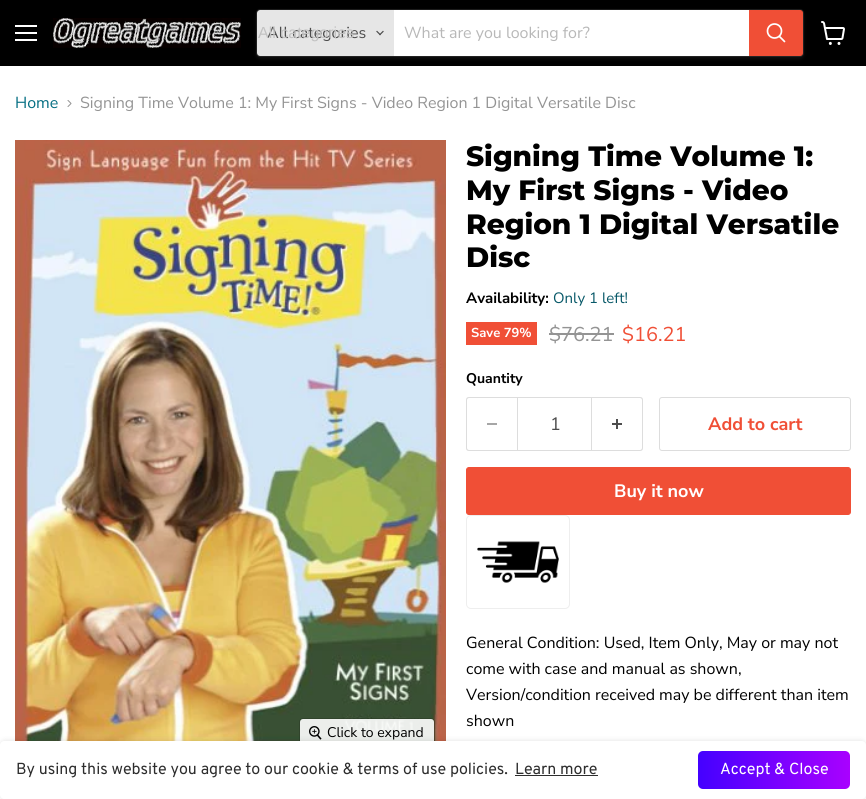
import math
import cairo

surface = cairo.ImageSurface(cairo.FORMAT_RGB24, 866, 799)
ctx = cairo.Context(surface)
options = cairo.FontOptions()
options.set_hint_metrics(cairo.HINT_METRICS_OFF)
options.set_hint_style(cairo.HINT_STYLE_NONE)
ctx.set_font_options(options)
ctx.set_miter_limit(4)


def set_color(code):
    ctx.set_source_rgb(*(v / 255 for v in bytes.fromhex(code[-6:])))


def draw_text(x, y, s, family, size, color, bold=False, italic=False):
    ctx.select_font_face(family, cairo.FONT_SLANT_ITALIC if italic else cairo.FONT_SLANT_NORMAL, cairo.FONT_WEIGHT_BOLD if bold else cairo.FONT_WEIGHT_NORMAL)
    ctx.set_font_size(size)
    set_color(color)
    ctx.move_to(x, y)
    ctx.show_text(s)


def fill_rect(x, y, w, h, color):
    set_color(color)
    ctx.rectangle(x, y, w, h)
    ctx.fill()


def rounded_rect(x, y, w, h, r):
    ctx.new_sub_path()
    for i, (u, v) in enumerate([(x + w - r, y + h - r), (x + r, y + h - r), (x + r, y + r), (x + w - r, y + r)]):
        ctx.arc(u, v, r, i * math.pi / 2, (i + 1) * math.pi / 2)
    ctx.close_path()


def draw_shadow(x, y, w, h, r, blur, alpha):
    ctx.push_group_with_content(cairo.CONTENT_ALPHA)
    ctx.set_operator(cairo.OPERATOR_SOURCE)
    for i in range(15, -16, -2):
        e = blur * i / 6
        if min(w, h) + 2 * e > 0:
            ctx.set_source_rgba(0, 0, 0, alpha * math.erfc((i - 1) / 8.5) / 2)
            rounded_rect(x - e, y - e, w + 2 * e, h + 2 * e, max(0, min(r + e + blur * .6, min(w, h) / 2 + e)))
            ctx.fill()
    ctx.mask(ctx.pop_group())


def draw_image(path, x, y, w, h):
    ctx.save()
    ctx.set_source_surface(cairo.ImageSurface.create_from_png(path), x, y)
    ctx.rectangle(x, y, w, h)
    ctx.fill()
    ctx.restore()


set_color("#ffffff")
ctx.paint()
fill_rect(0, 0, 866, 66, "#000000")
fill_rect(15, 25, 22, 2, "#ffffff")
fill_rect(15, 32, 22, 2, "#ffffff")
fill_rect(15, 39, 22, 2, "#ffffff")
draw_image("assets/img1.png", 53, 18, 188, 30)
set_color("#808080")
draw_shadow(256, 11, 548, 48, 4, 1.5, 0.11)
rounded_rect(256.5, 9.5, 547, 47, 3.5)
ctx.set_source_rgba(0.502, 0.502, 0.502, 0.2)
ctx.set_line_width(1)
ctx.stroke()
set_color("#e6e6e6")
ctx.new_path()
ctx.move_to(260, 10)
ctx.line_to(394, 10)
ctx.line_to(394, 56)
ctx.line_to(260, 56)
ctx.curve_to(258.5, 56, 257, 54.5, 257, 53)
ctx.line_to(257, 13)
ctx.curve_to(257, 11.5, 258.5, 10, 260, 10)
ctx.close_path()
ctx.fill()
draw_text(267, 38, "All categories", "Nunito Sans", 16, "#4d4d4d")
draw_text(258, 38, "All categories", "Liberation Sans", 16, "#c2c2c2")
draw_image("assets/img2.png", 376, 30, 8, 6)
fill_rect(394, 10, 355, 46, "#ffffff")
draw_text(404, 38, "What are you looking for?", "Nunito Sans", 16, "#b8b8b8")
set_color("#f04f36")
ctx.new_path()
ctx.move_to(749.5, 10.5)
ctx.line_to(800, 10.5)
ctx.curve_to(801.5, 10.5, 802.5, 11.5, 802.5, 13)
ctx.line_to(802.5, 53)
ctx.curve_to(802.5, 54.5, 801.5, 55.5, 800, 55.5)
ctx.line_to(749.5, 55.5)
ctx.close_path()
ctx.fill_preserve()
ctx.stroke()
ctx.new_path()
ctx.move_to(784.5, 41.5)
ctx.line_to(779.5, 36.5)
set_color("#ffffff")
ctx.set_line_width(1.7)
ctx.set_line_cap(cairo.LINE_CAP_ROUND)
ctx.stroke()
ctx.arc(774.5, 31, 7, 0, 2 * math.pi)
ctx.set_line_cap(cairo.LINE_CAP_BUTT)
ctx.stroke()
draw_image("assets/img3.png", 821, 21, 24, 24)
draw_text(15, 108, "Home", "Nunito Sans", 16, "#046e82")
draw_image("assets/img4.png", 67, 100, 5, 7)
draw_text(80, 108, "Signing Time Volume 1: My First Signs - Video Region 1 Digital Versatile Disc", "Nunito Sans", 16, "#949494")
draw_text(466, 166, "Signing Time Volume 1:", "Montserrat ExtraBold", 28, "#000000")
draw_text(466, 200, "My First Signs - Video", "Montserrat ExtraBold", 28, "#000000")
draw_text(466, 234, "Region 1 Digital Versatile", "Montserrat ExtraBold", 28, "#000000")
draw_text(466, 267, "Disc", "Montserrat ExtraBold", 28, "#000000")
draw_text(466, 303, "Availability:", "Nunito Sans", 15, "#000000", bold=True)
draw_text(553, 303, "Only 1 left!", "Nunito Sans", 15, "#075868")
fill_rect(466, 322, 71, 23, "#f04f36")
draw_text(471, 337, "Save 79%", "Nunito Sans", 13, "#ffffff", bold=True)
draw_text(549, 341, "$76.21", "Nunito Sans", 20, "#949494")
fill_rect(549, 333, 65, 2, "#949494")
draw_text(622, 341, "$16.21", "Nunito Sans", 20, "#f04f36")
draw_text(466, 383, "Quantity", "Nunito Sans", 14, "#000000", bold=True)
set_color("#dddddd")
ctx.set_fill_rule(cairo.FILL_RULE_EVEN_ODD)
ctx.new_path()
ctx.move_to(469, 397)
ctx.line_to(517, 397)
ctx.line_to(517, 451)
ctx.line_to(469, 451)
ctx.curve_to(467, 451, 466, 450, 466, 448)
ctx.line_to(466, 400)
ctx.curve_to(466, 398, 467, 397, 469, 397)
ctx.close_path()
ctx.move_to(469, 398)
ctx.line_to(517, 398)
ctx.line_to(517, 450)
ctx.line_to(469, 450)
ctx.curve_to(468, 450, 467, 449, 467, 448)
ctx.line_to(467, 400)
ctx.curve_to(467, 399, 468, 398, 469, 398)
ctx.close_path()
ctx.fill()
fill_rect(487, 423, 10, 2, "#a6a6a6")
ctx.rectangle(517.5, 397.5, 74, 53)
set_color("#dddddd")
ctx.set_line_width(1)
ctx.stroke()
draw_text(550, 430, "1", "Nunito Sans", 18, "#4d4d4d")
set_color("#dddddd")
ctx.new_path()
ctx.move_to(592, 397)
ctx.line_to(640, 397)
ctx.curve_to(642, 397, 643, 398, 643, 400)
ctx.line_to(643, 448)
ctx.curve_to(643, 450, 642, 451, 640, 451)
ctx.line_to(592, 451)
ctx.close_path()
ctx.move_to(592, 398)
ctx.line_to(640, 398)
ctx.curve_to(641, 398, 642, 399, 642, 400)
ctx.line_to(642, 448)
ctx.curve_to(642, 449, 641, 450, 640, 450)
ctx.line_to(592, 450)
ctx.close_path()
ctx.fill()
draw_image("assets/img5.png", 612, 419, 10, 10)
rounded_rect(659.5, 397.5, 191, 53, 2.5)
ctx.stroke()
draw_text(708, 430, "Add to cart", "Nunito Sans", 18, "#f04f36", bold=True)
rounded_rect(466.5, 467.5, 384, 47, 2.5)
ctx.fill_preserve()
ctx.stroke()
draw_text(614, 497, "Buy it now", "Nunito Sans", 18, "#ffffff", bold=True)
rounded_rect(466.5, 515.5, 103, 93, 4.5)
set_color("#eeeeee")
ctx.stroke()
draw_image("assets/img6.png", 477, 541, 82, 42)
draw_text(466, 648, "General Condition: Used, Item Only, May or may not", "Nunito Sans", 16, "#000000")
draw_text(466, 674, "come with case and manual as shown,", "Nunito Sans", 16, "#000000")
draw_text(466, 700, "Version/condition received may be different than item", "Nunito Sans", 16, "#000000")
draw_text(466, 726, "shown", "Nunito Sans", 16, "#000000")
draw_image("assets/img7.png", 15, 140, 431, 601)
rounded_rect(299.5, 718.5, 135, 29, 3.5)
ctx.set_source_rgba(0, 0, 0, 0.15)
ctx.stroke()
ctx.set_source_rgba(1, 1, 1, 0.9)
rounded_rect(300, 719, 134, 28, 3)
ctx.fill()
draw_image("assets/img8.png", 309, 726, 13, 14)
draw_text(327, 737, "Click to expand", "Nunito Sans", 14, "#000000")
fill_rect(299, 741, 136, 7, "#ffffff")
ctx.save()
ctx.new_path()
ctx.move_to(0, 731)
ctx.line_to(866, 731)
ctx.line_to(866, 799)
ctx.line_to(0, 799)
ctx.close_path()
ctx.move_to(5, 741)
ctx.line_to(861, 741)
ctx.curve_to(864, 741, 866, 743, 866, 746)
ctx.line_to(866, 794)
ctx.curve_to(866, 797, 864, 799, 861, 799)
ctx.line_to(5, 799)
ctx.curve_to(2, 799, 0, 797, 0, 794)
ctx.line_to(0, 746)
ctx.curve_to(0, 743, 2, 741, 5, 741)
ctx.close_path()
ctx.clip()
set_color("#000000")
draw_shadow(0, 741, 866, 58, 5, 3, 0.12)
ctx.restore()
draw_text(16, 774, "By using this website you agree to our cookie & terms of use policies.", "Overpass", 16, "#2d2d2d")
draw_text(515, 774, "Learn more", "Overpass", 16, "#2d2d2d")
fill_rect(515, 775, 83, 1, "#2d2d2d")
gradient = cairo.LinearGradient(698, 770, 850, 770)
gradient.add_color_stop_rgba(0, 0.267, 0.004, 1, 1)
gradient.add_color_stop_rgba(1, 0.663, 0.004, 1, 1)
ctx.set_source(gradient)
rounded_rect(698, 751, 152, 38, 5)
ctx.fill()
draw_text(720, 774, "Accept & Close", "Overpass", 16, "#ffffff")
surface.write_to_png("output.png")
